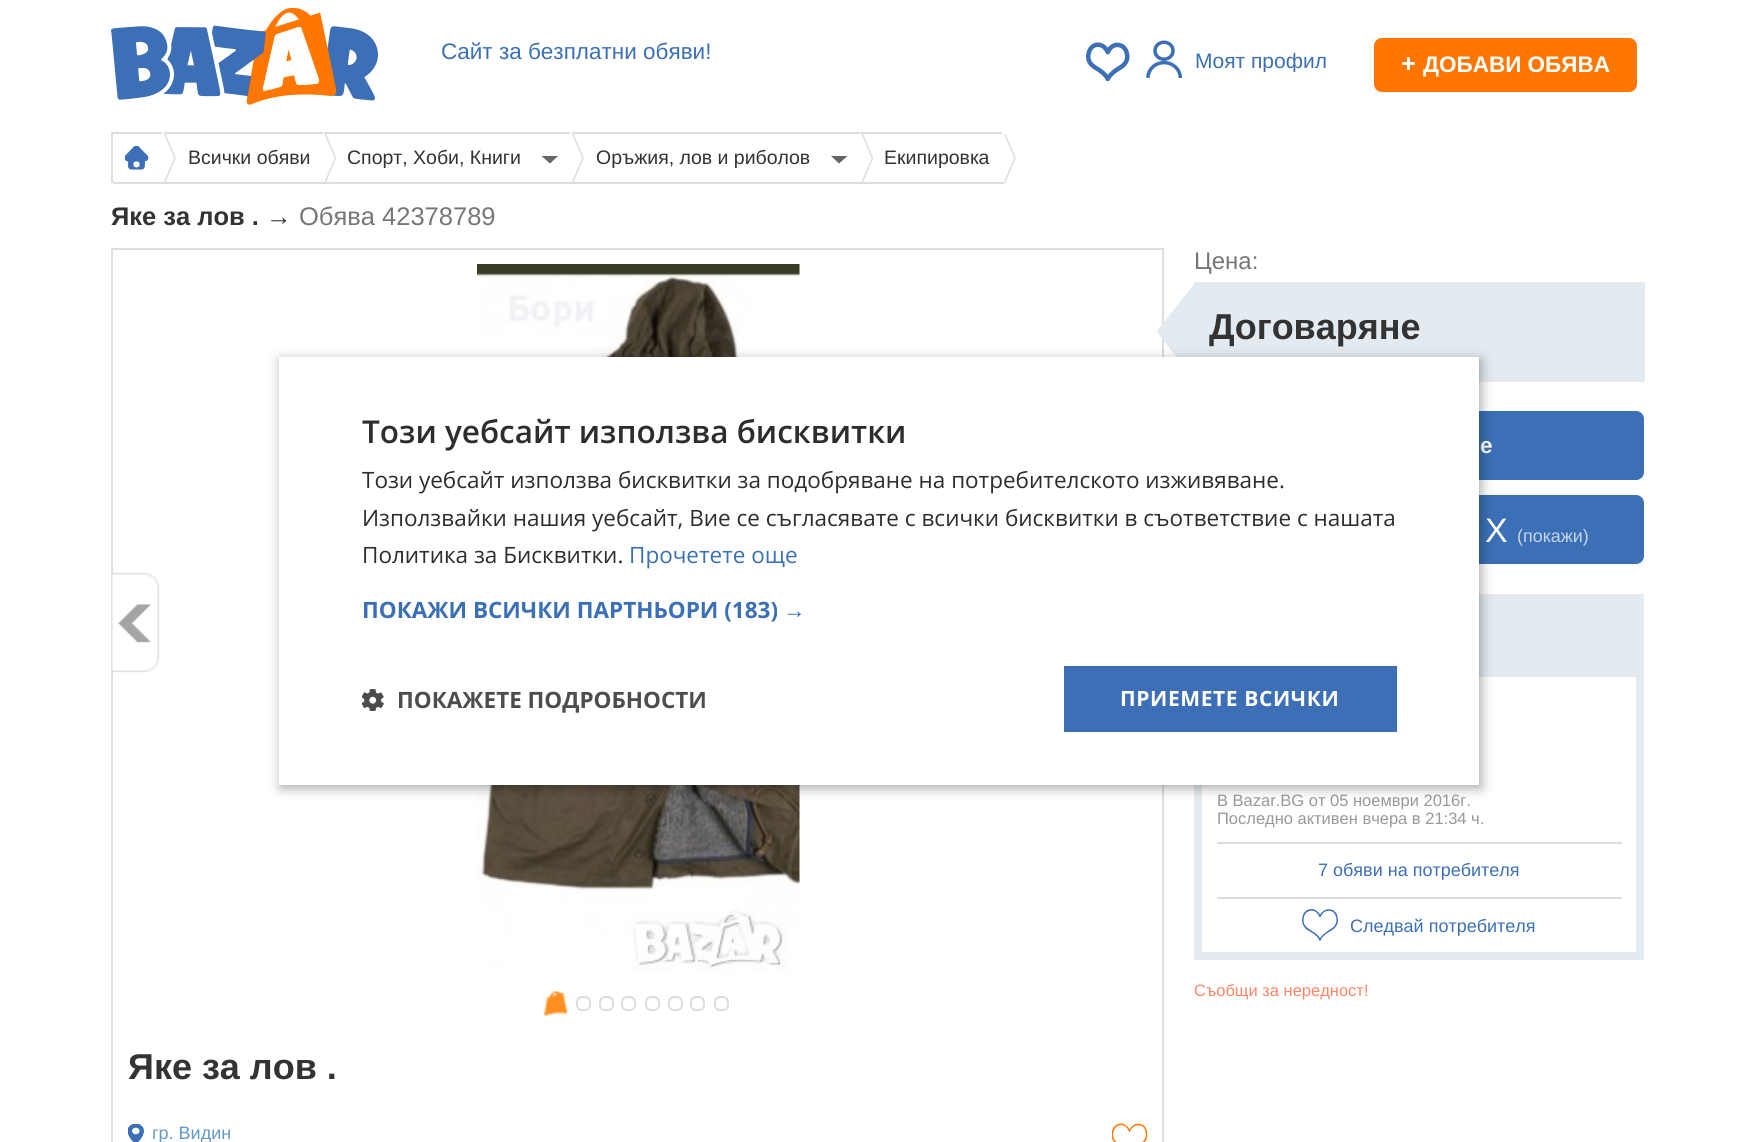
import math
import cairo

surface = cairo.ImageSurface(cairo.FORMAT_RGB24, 1758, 1142)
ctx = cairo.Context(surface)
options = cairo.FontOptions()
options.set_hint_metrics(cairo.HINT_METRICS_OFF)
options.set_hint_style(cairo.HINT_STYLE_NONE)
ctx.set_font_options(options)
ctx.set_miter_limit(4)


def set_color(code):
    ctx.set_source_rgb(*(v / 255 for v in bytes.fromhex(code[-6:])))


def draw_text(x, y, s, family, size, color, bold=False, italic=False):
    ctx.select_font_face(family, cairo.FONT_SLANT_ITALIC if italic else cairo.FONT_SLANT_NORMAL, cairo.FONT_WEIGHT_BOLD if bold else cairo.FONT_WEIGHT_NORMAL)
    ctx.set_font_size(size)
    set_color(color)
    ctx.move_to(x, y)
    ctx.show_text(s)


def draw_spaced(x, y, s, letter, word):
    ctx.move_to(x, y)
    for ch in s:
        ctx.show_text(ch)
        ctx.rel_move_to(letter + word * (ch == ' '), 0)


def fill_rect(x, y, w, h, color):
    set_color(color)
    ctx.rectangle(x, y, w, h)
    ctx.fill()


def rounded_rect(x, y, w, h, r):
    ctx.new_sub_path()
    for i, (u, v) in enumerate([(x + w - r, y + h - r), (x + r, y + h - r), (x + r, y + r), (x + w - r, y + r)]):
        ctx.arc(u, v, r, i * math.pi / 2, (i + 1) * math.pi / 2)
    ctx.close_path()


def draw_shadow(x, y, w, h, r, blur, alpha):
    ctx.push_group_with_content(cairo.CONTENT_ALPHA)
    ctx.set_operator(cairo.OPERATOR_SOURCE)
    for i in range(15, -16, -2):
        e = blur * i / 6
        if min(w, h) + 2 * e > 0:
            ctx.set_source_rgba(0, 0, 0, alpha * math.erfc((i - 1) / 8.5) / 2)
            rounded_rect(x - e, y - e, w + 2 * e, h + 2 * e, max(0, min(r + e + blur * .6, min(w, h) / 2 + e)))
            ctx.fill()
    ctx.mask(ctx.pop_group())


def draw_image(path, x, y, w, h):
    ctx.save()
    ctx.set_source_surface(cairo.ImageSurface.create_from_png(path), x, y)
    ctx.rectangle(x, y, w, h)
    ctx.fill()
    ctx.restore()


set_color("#ffffff")
ctx.paint()
draw_image("assets/img1.png", 111, 8, 267, 97)
draw_text(441, 59, "Сайт за безплатни обяви!", "Liberation Sans", 22.5, "#3b6fb6")
draw_image("assets/img2.png", 1086, 42, 44, 39)
draw_image("assets/img3.png", 1146, 40, 37, 38)
ctx.save()
ctx.rectangle(1196, 48, 151, 24)
ctx.clip()
draw_text(1195, 68, "Моят профил", "Liberation Sans", 21, "#3b6fb6")
ctx.restore()
set_color("#ff7700")
rounded_rect(1374, 38, 263, 54, 8)
ctx.fill()
draw_text(1401, 72, "+", "Liberation Sans", 25.5, "#ffffff", bold=True)
draw_text(1423, 72, "ДОБАВИ ОБЯВА", "Liberation Sans", 22.5, "#ffffff", bold=True)
fill_rect(111, 132, 2, 51, "#dddddd")
draw_image("assets/img4.png", 125, 146, 24, 24)
fill_rect(113, 132, 891, 2, "#dddddd")
fill_rect(162, 132, 2, 2, "#ffffff")
fill_rect(113, 182, 51, 2, "#dddddd")
ctx.save()
ctx.rectangle(164, 134, 12, 49)
ctx.clip()
ctx.new_path()
ctx.move_to(163.5, 131)
ctx.line_to(175, 158)
ctx.line_to(163.5, 185)
ctx.set_line_width(1.5)
ctx.set_line_join(cairo.LINE_JOIN_ROUND)
ctx.stroke()
ctx.restore()
fill_rect(323, 132, 1, 2, "#ffffff")
fill_rect(164, 182, 160, 2, "#dddddd")
draw_text(188, 164, "Всички обяви", "Liberation Sans", 19.5, "#333333")
ctx.save()
ctx.rectangle(324, 134, 12, 49)
ctx.clip()
ctx.new_path()
ctx.move_to(324, 131)
ctx.line_to(335.5, 158)
ctx.line_to(324, 185)
set_color("#dddddd")
ctx.set_line_width(1.5)
ctx.set_line_join(cairo.LINE_JOIN_ROUND)
ctx.stroke()
ctx.restore()
fill_rect(570, 132, 2, 2, "#ffffff")
fill_rect(324, 182, 248, 2, "#dddddd")
draw_text(347, 164, "Спорт, Хоби, Книги", "Liberation Sans", 19.5, "#333333")
set_color("#666666")
ctx.new_path()
ctx.move_to(541.5, 156)
ctx.line_to(558, 156)
ctx.line_to(550, 163.5)
ctx.close_path()
ctx.fill()
ctx.save()
ctx.rectangle(572, 134, 12, 49)
ctx.clip()
ctx.new_path()
ctx.move_to(571.5, 131)
ctx.line_to(583, 158)
ctx.line_to(571.5, 185)
set_color("#dddddd")
ctx.set_line_width(1.5)
ctx.set_line_join(cairo.LINE_JOIN_ROUND)
ctx.stroke()
ctx.restore()
fill_rect(860, 132, 1, 2, "#ffffff")
fill_rect(572, 182, 289, 2, "#dddddd")
draw_text(596, 164, "Оръжия, лов и риболов", "Liberation Sans", 19.5, "#333333")
set_color("#666666")
ctx.new_path()
ctx.move_to(831, 156)
ctx.line_to(847.5, 156)
ctx.line_to(839, 163.5)
ctx.close_path()
ctx.fill()
ctx.save()
ctx.rectangle(861, 134, 12, 49)
ctx.clip()
ctx.new_path()
ctx.move_to(861, 131)
ctx.line_to(872.5, 158)
ctx.line_to(861, 185)
set_color("#dddddd")
ctx.set_line_width(1.5)
ctx.set_line_join(cairo.LINE_JOIN_ROUND)
ctx.stroke()
ctx.restore()
fill_rect(1002, 132, 2, 2, "#ffffff")
fill_rect(861, 182, 143, 2, "#dddddd")
draw_text(884, 164, "Екипировка", "Liberation Sans", 19.5, "#333333")
ctx.save()
ctx.rectangle(1004, 134, 12, 49)
ctx.clip()
ctx.new_path()
ctx.move_to(1003.5, 131)
ctx.line_to(1015, 158)
ctx.line_to(1003.5, 185)
set_color("#dddddd")
ctx.set_line_width(1.5)
ctx.set_line_join(cairo.LINE_JOIN_ROUND)
ctx.stroke()
ctx.restore()
draw_text(111, 225, "Яке за лов . →", "Liberation Sans", 25.5, "#333333", bold=True)
draw_text(299, 225, "Обява 42378789", "Liberation Sans", 25.5, "#777777")
draw_text(1194, 269, "Цена:", "Liberation Sans", 24, "#777777")
fill_rect(1194, 282, 449, 98, "#e3ebf0")
fill_rect(1643, 282, 2, 99, "#e3ebf0")
fill_rect(1479, 380, 165, 2, "#e3ebf0")
ctx.rectangle(112, 249, 1051, 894)
set_color("#dddddd")
ctx.stroke()
set_color("#e3ebf0")
ctx.new_path()
ctx.move_to(1194, 380)
ctx.line_to(1194, 284)
ctx.line_to(1157, 331)
ctx.line_to(1157, 332)
ctx.close_path()
ctx.fill()
draw_text(1209, 339, "Договаряне", "Liberation Sans", 36, "#333333", bold=True)
set_color("#3b6fb6")
rounded_rect(1194, 411, 450, 69, 8)
ctx.fill()
draw_text(1480, 453, "е", "Liberation Sans", 22.5, "#ffffff", bold=True)
set_color("#3b6fb6")
rounded_rect(1194, 495, 450, 69, 8)
ctx.fill()
draw_text(1485, 542, "X", "Liberation Sans", 34, "#ffffff")
draw_text(1517, 542, "(покажи)", "Liberation Sans", 18, "#c4d4e9")
ctx.rectangle(1198, 598, 442, 358)
set_color("#e3ebf0")
ctx.set_line_width(8)
ctx.stroke()
fill_rect(1479, 602, 157, 75, "#e3ebf0")
draw_text(1217, 806, "В Bazar.BG от 05 ноември 2016г.", "Liberation Sans", 16.5, "#999999")
draw_text(1217, 824, "Последно активен вчера в 21:34 ч.", "Liberation Sans", 16.5, "#999999")
fill_rect(1217, 842, 405, 2, "#dddddd")
draw_text(1318, 876, "7 обяви на потребителя", "Liberation Sans", 18, "#3b6fb6")
fill_rect(1217, 897, 405, 2, "#dddddd")
draw_image("assets/img5.png", 1302, 909, 36, 32)
draw_text(1350, 932, "Следвай потребителя", "Liberation Sans", 18, "#3b6fb6")
draw_text(1194, 996, "Съобщи за нередност!", "Liberation Sans", 16.5, "#ff8566")
draw_image("assets/img6.png", 112, 572, 48, 101)
draw_image("assets/img7.png", 477, 264, 323, 708)
draw_image("assets/img8.png", 544, 991, 24, 25)
rounded_rect(577, 997, 13, 13, 5)
set_color("#dddddd")
ctx.set_line_width(2)
ctx.stroke()
rounded_rect(600, 997, 13, 13, 5)
ctx.stroke()
rounded_rect(622, 997, 13, 13, 5)
ctx.stroke()
rounded_rect(646, 997, 13, 13, 5)
ctx.stroke()
rounded_rect(669, 997, 13, 13, 5)
ctx.stroke()
rounded_rect(691, 997, 13, 13, 5)
ctx.stroke()
rounded_rect(715, 997, 13, 13, 5)
ctx.stroke()
draw_text(128, 1079, "Яке за лов .", "Liberation Sans", 36, "#333333", bold=True)
draw_image("assets/img9.png", 128, 1124, 16, 18)
draw_text(152, 1139, "гр. Видин", "Liberation Sans", 18, "#639ac6")
draw_image("assets/img10.png", 1112, 1123, 36, 19)
set_color("#000000")
draw_shadow(281, 360, 1200, 428, 0, 6, 0.35)
fill_rect(279, 357, 1200, 428, "#ffffff")
draw_text(362, 443, "Този уебсайт използва бисквитки", "Open Sans SemiBold", 31.5, "#2d2d2d")
draw_text(362, 488, "Този уебсайт използва бисквитки за подобряване на потребителското изживяване.", "Open Sans", 22.5, "#2d2d2d")
draw_text(362, 526, "Използвайки нашия уебсайт, Вие се съгласявате с всички бисквитки в съответствие с нашата", "Open Sans", 22.5, "#2d2d2d")
draw_text(362, 563, "Политика за Бисквитки.", "Open Sans", 22.5, "#2d2d2d")
draw_text(629, 563, "Прочетете още", "Open Sans", 22.5, "#3b6fb6")
draw_text(362, 618, "ПОКАЖИ ВСИЧКИ ПАРТНЬОРИ (183)", "Open Sans", 22.5, "#3b6fb6", bold=True)
draw_text(783, 618, "→", "Liberation Sans", 22.5, "#3b6fb6", bold=True)
draw_image("assets/img11.png", 362, 689, 22, 22)
draw_text(397, 708, "ПОКАЖЕТЕ ПОДРОБНОСТИ", "Open Sans", 22.5, "#4d4d4d", bold=True)
fill_rect(1064, 666, 333, 66, "#3c6fb6")
ctx.set_font_size(21)
set_color("#ffffff")
draw_spaced(1120, 706, "ПРИЕМЕТЕ ВСИЧКИ", 0.6, 0)
surface.write_to_png("output.png")
